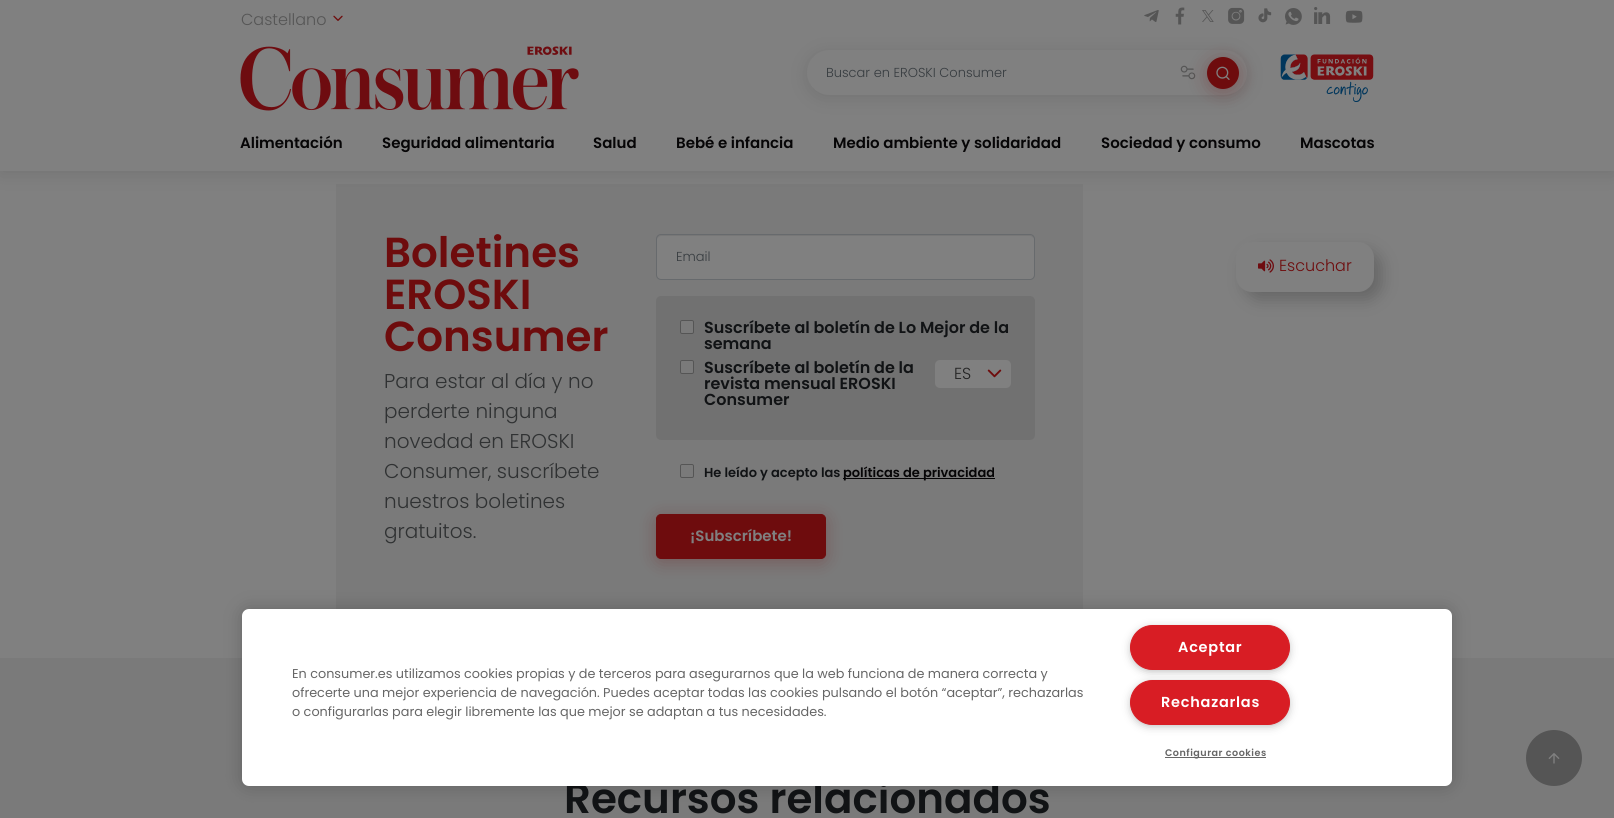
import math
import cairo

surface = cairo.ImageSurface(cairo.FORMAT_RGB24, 1614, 818)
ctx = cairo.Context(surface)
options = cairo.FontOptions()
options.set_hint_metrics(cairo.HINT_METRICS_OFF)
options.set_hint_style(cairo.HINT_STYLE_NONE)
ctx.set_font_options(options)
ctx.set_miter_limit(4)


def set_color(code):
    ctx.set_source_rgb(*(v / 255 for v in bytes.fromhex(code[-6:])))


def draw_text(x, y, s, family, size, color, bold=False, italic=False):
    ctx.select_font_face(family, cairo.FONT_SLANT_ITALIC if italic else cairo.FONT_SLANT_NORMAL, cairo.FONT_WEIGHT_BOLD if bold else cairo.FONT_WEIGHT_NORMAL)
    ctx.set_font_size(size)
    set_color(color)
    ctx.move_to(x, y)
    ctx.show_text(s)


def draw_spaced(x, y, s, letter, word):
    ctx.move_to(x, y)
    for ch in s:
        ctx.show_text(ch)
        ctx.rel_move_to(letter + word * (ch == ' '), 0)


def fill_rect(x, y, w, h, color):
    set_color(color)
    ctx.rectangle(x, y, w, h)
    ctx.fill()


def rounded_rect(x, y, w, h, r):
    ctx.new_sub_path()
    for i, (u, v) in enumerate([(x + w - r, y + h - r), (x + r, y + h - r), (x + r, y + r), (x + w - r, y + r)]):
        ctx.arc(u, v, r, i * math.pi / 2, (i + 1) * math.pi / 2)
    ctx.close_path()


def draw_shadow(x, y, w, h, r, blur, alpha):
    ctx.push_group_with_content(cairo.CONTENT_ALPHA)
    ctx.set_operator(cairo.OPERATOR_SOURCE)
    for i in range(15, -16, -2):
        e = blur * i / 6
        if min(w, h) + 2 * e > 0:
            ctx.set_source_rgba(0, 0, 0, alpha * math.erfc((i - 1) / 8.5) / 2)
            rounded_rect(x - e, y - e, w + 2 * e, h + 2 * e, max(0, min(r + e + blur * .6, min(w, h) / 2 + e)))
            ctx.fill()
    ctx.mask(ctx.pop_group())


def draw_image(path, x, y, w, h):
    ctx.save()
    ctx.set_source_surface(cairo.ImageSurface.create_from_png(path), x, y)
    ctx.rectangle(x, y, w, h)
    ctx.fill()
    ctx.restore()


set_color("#808080")
ctx.paint()
fill_rect(336, 184, 747, 425, "#7a7a7a")
set_color("#060506")
draw_shadow(0, 3, 1614, 171, 0, 9, 0.1)
fill_rect(0, 0, 1614, 171, "#808080")
draw_text(241, 25, "Castellano", "Poppins Light", 16, "#555555")
draw_image("assets/img1.png", 333, 15, 10, 6)
draw_image("assets/img2.png", 1144, 10, 15, 12)
draw_image("assets/img3.png", 1175, 7, 10, 18)
draw_image("assets/img4.png", 1202, 10, 12, 12)
draw_image("assets/img5.png", 1228, 7, 17, 17)
draw_image("assets/img6.png", 1258, 8, 14, 15)
draw_image("assets/img7.png", 1285, 8, 17, 17)
draw_image("assets/img8.png", 1314, 7, 17, 17)
draw_image("assets/img9.png", 1345, 10, 18, 13)
draw_image("assets/img10.png", 240, 46, 339, 65)
set_color("#060506")
draw_shadow(807, 53, 440, 45, 22.5, 9, 0.1)
set_color("#808080")
rounded_rect(807, 50, 440, 45, 22.5)
ctx.fill()
draw_image("assets/img12.png", 1180, 65, 16, 15)
set_color("#6e0c0d")
draw_shadow(1207, 60, 32, 32, 16, 9, 0.3)
set_color("#6e0c0d")
ctx.arc(1223, 73, 16, 0, 2 * math.pi)
ctx.fill()
draw_image("assets/img11.png", 1216, 66, 14, 14)
draw_text(826, 77, "Buscar en EROSKI Consumer", "Poppins Light", 13, "#363b3f")
draw_image("assets/img13.png", 1280, 54, 94, 48)
draw_text(240, 148, "Alimentación", "Poppins SemiBold", 15, "#060506")
draw_text(382, 148, "Seguridad alimentaria", "Poppins SemiBold", 15, "#060506")
draw_text(593, 148, "Salud", "Poppins SemiBold", 15, "#060506")
draw_text(676, 148, "Bebé e infancia", "Poppins SemiBold", 15, "#060506")
draw_text(833, 148, "Medio ambiente y solidaridad", "Poppins SemiBold", 15, "#060506")
draw_text(1101, 148, "Sociedad y consumo", "Poppins SemiBold", 15, "#060506")
draw_text(1300, 148, "Mascotas", "Poppins SemiBold", 15, "#060506")
draw_text(384, 267, "Boletines", "Poppins SemiBold", 42, "#6e0c0d")
draw_text(384, 309, "EROSKI", "Poppins SemiBold", 42, "#6e0c0d")
draw_text(384, 351, "Consumer", "Poppins SemiBold", 42, "#6e0c0d")
draw_text(384, 388, "Para estar al día y no", "Poppins Light", 20, "#303233")
draw_text(384, 418, "perderte ninguna", "Poppins Light", 20, "#303233")
draw_text(384, 448, "novedad en EROSKI", "Poppins Light", 20, "#303233")
draw_text(384, 478, "Consumer, suscríbete", "Poppins Light", 20, "#303233")
draw_text(384, 508, "nuestros boletines", "Poppins Light", 20, "#303233")
draw_text(384, 538, "gratuitos.", "Poppins Light", 20, "#303233")
set_color("#808080")
rounded_rect(657, 235, 377, 44, 4)
ctx.fill()
ctx.set_source_rgba(0.024, 0.02, 0.024, 0.07)
ctx.new_path()
ctx.move_to(661, 236)
ctx.line_to(1030, 236)
ctx.curve_to(1032, 236, 1034, 238, 1034, 240)
ctx.curve_to(1034, 237, 1033, 235, 1030, 235)
ctx.line_to(661, 235)
ctx.curve_to(658, 235, 657, 237, 657, 240)
ctx.curve_to(657, 238, 659, 236, 661, 236)
ctx.close_path()
ctx.fill()
rounded_rect(656.5, 234.5, 378, 45, 4.5)
set_color("#676a6d")
ctx.set_line_width(1)
ctx.stroke()
draw_text(676, 261, "Email", "Poppins Light", 13, "#363b3f")
set_color("#717171")
rounded_rect(656, 296, 379, 144, 5)
ctx.fill()
set_color("#7a7a7a")
rounded_rect(680.5, 320.5, 13, 13, 1.5)
ctx.fill_preserve()
set_color("#555555")
ctx.stroke()
draw_text(704, 333, "Suscríbete al boletín de Lo Mejor de la", "Poppins SemiBold", 16, "#111315")
draw_text(704, 349, "semana", "Poppins SemiBold", 16, "#111315")
set_color("#7a7a7a")
rounded_rect(680.5, 360.5, 13, 13, 1.5)
ctx.fill_preserve()
set_color("#555555")
ctx.stroke()
draw_text(704, 373, "Suscríbete al boletín de la", "Poppins SemiBold", 16, "#111315")
draw_text(704, 389, "revista mensual EROSKI", "Poppins SemiBold", 16, "#111315")
draw_text(704, 405, "Consumer", "Poppins SemiBold", 16, "#111315")
set_color("#808080")
rounded_rect(935, 360, 76, 28, 5)
ctx.fill()
draw_text(954, 379, "ES", "Poppins Light", 16, "#222222")
draw_image("assets/img14.png", 987, 369, 15, 9)
rounded_rect(680.5, 464.5, 13, 13, 1.5)
set_color("#555555")
ctx.stroke()
draw_text(704, 477, "He leído y acepto las", "Poppins SemiBold", 13, "#111315")
fill_rect(843, 478, 152, 1, "#060506")
draw_text(843, 477, "políticas de privacidad", "Poppins SemiBold", 13, "#060506")
set_color("#6e0c0d")
draw_shadow(656, 517, 170, 45, 5, 9, 0.3)
set_color("#6e0c0d")
rounded_rect(656.5, 514.5, 169, 44, 4.5)
ctx.fill_preserve()
ctx.stroke()
draw_text(690, 541, "¡Subscríbete!", "Poppins SemiBold", 15, "#808080")
set_color("#000000")
draw_shadow(1244, 250, 138, 50, 16, 8, 0.2)
set_color("#808080")
rounded_rect(1236, 242, 138, 50, 16)
ctx.fill()
draw_image("assets/img15.png", 1258, 259, 16, 14)
draw_text(1279, 271, "Escuchar", "Poppins Light", 16, "#6e0c0d")
fill_rect(0, 658, 1614, 160, "#7a7a7a")
draw_text(564, 813, "Recursos relacionados", "Poppins SemiBold", 42, "#111315")
set_color("#000000")
draw_shadow(242, 609, 1210, 177, 7, 9, 0.2)
set_color("#ffffff")
rounded_rect(242, 609, 1210, 177, 7)
ctx.fill()
draw_text(292, 678, "En consumer.es utilizamos cookies propias y de terceros para asegurarnos que la web funciona de manera correcta y", "Poppins", 12.8, "#666666")
draw_text(292, 697, "ofrecerte una mejor experiencia de navegación. Puedes aceptar todas las cookies pulsando el botón “aceptar”, rechazarlas", "Poppins", 12.8, "#666666")
draw_text(292, 716, "o configurarlas para elegir libremente las que mejor se adaptan a tus necesidades.", "Poppins", 12.8, "#666666")
set_color("#999999")
draw_shadow(1133, 630, 154, 39, 19.5, 5, 1)
set_color("#d81d24")
rounded_rect(1130.5, 625.5, 159, 44, 22)
ctx.fill_preserve()
ctx.stroke()
ctx.select_font_face("Poppins SemiBold")
ctx.set_font_size(14.5)
set_color("#ffffff")
draw_spaced(1178, 652, "Aceptar", 0.75, 0)
set_color("#999999")
draw_shadow(1133, 685, 154, 39, 19.5, 5, 1)
set_color("#d81d24")
rounded_rect(1130.5, 680.5, 159, 44, 22)
ctx.fill_preserve()
ctx.stroke()
set_color("#ffffff")
draw_spaced(1161, 707, "Rechazarlas", 0.75, 0)
fill_rect(1165, 757, 101, 1, "#666666")
ctx.set_font_size(9.6)
draw_spaced(1165, 756, "Configurar cookies", 0.5, 0)
set_color("#555555")
ctx.new_path()
ctx.arc(1554, 758, 28, 0, 2 * math.pi)
ctx.fill()
draw_image("assets/img16.png", 1548, 753, 12, 11)
surface.write_to_png("output.png")
